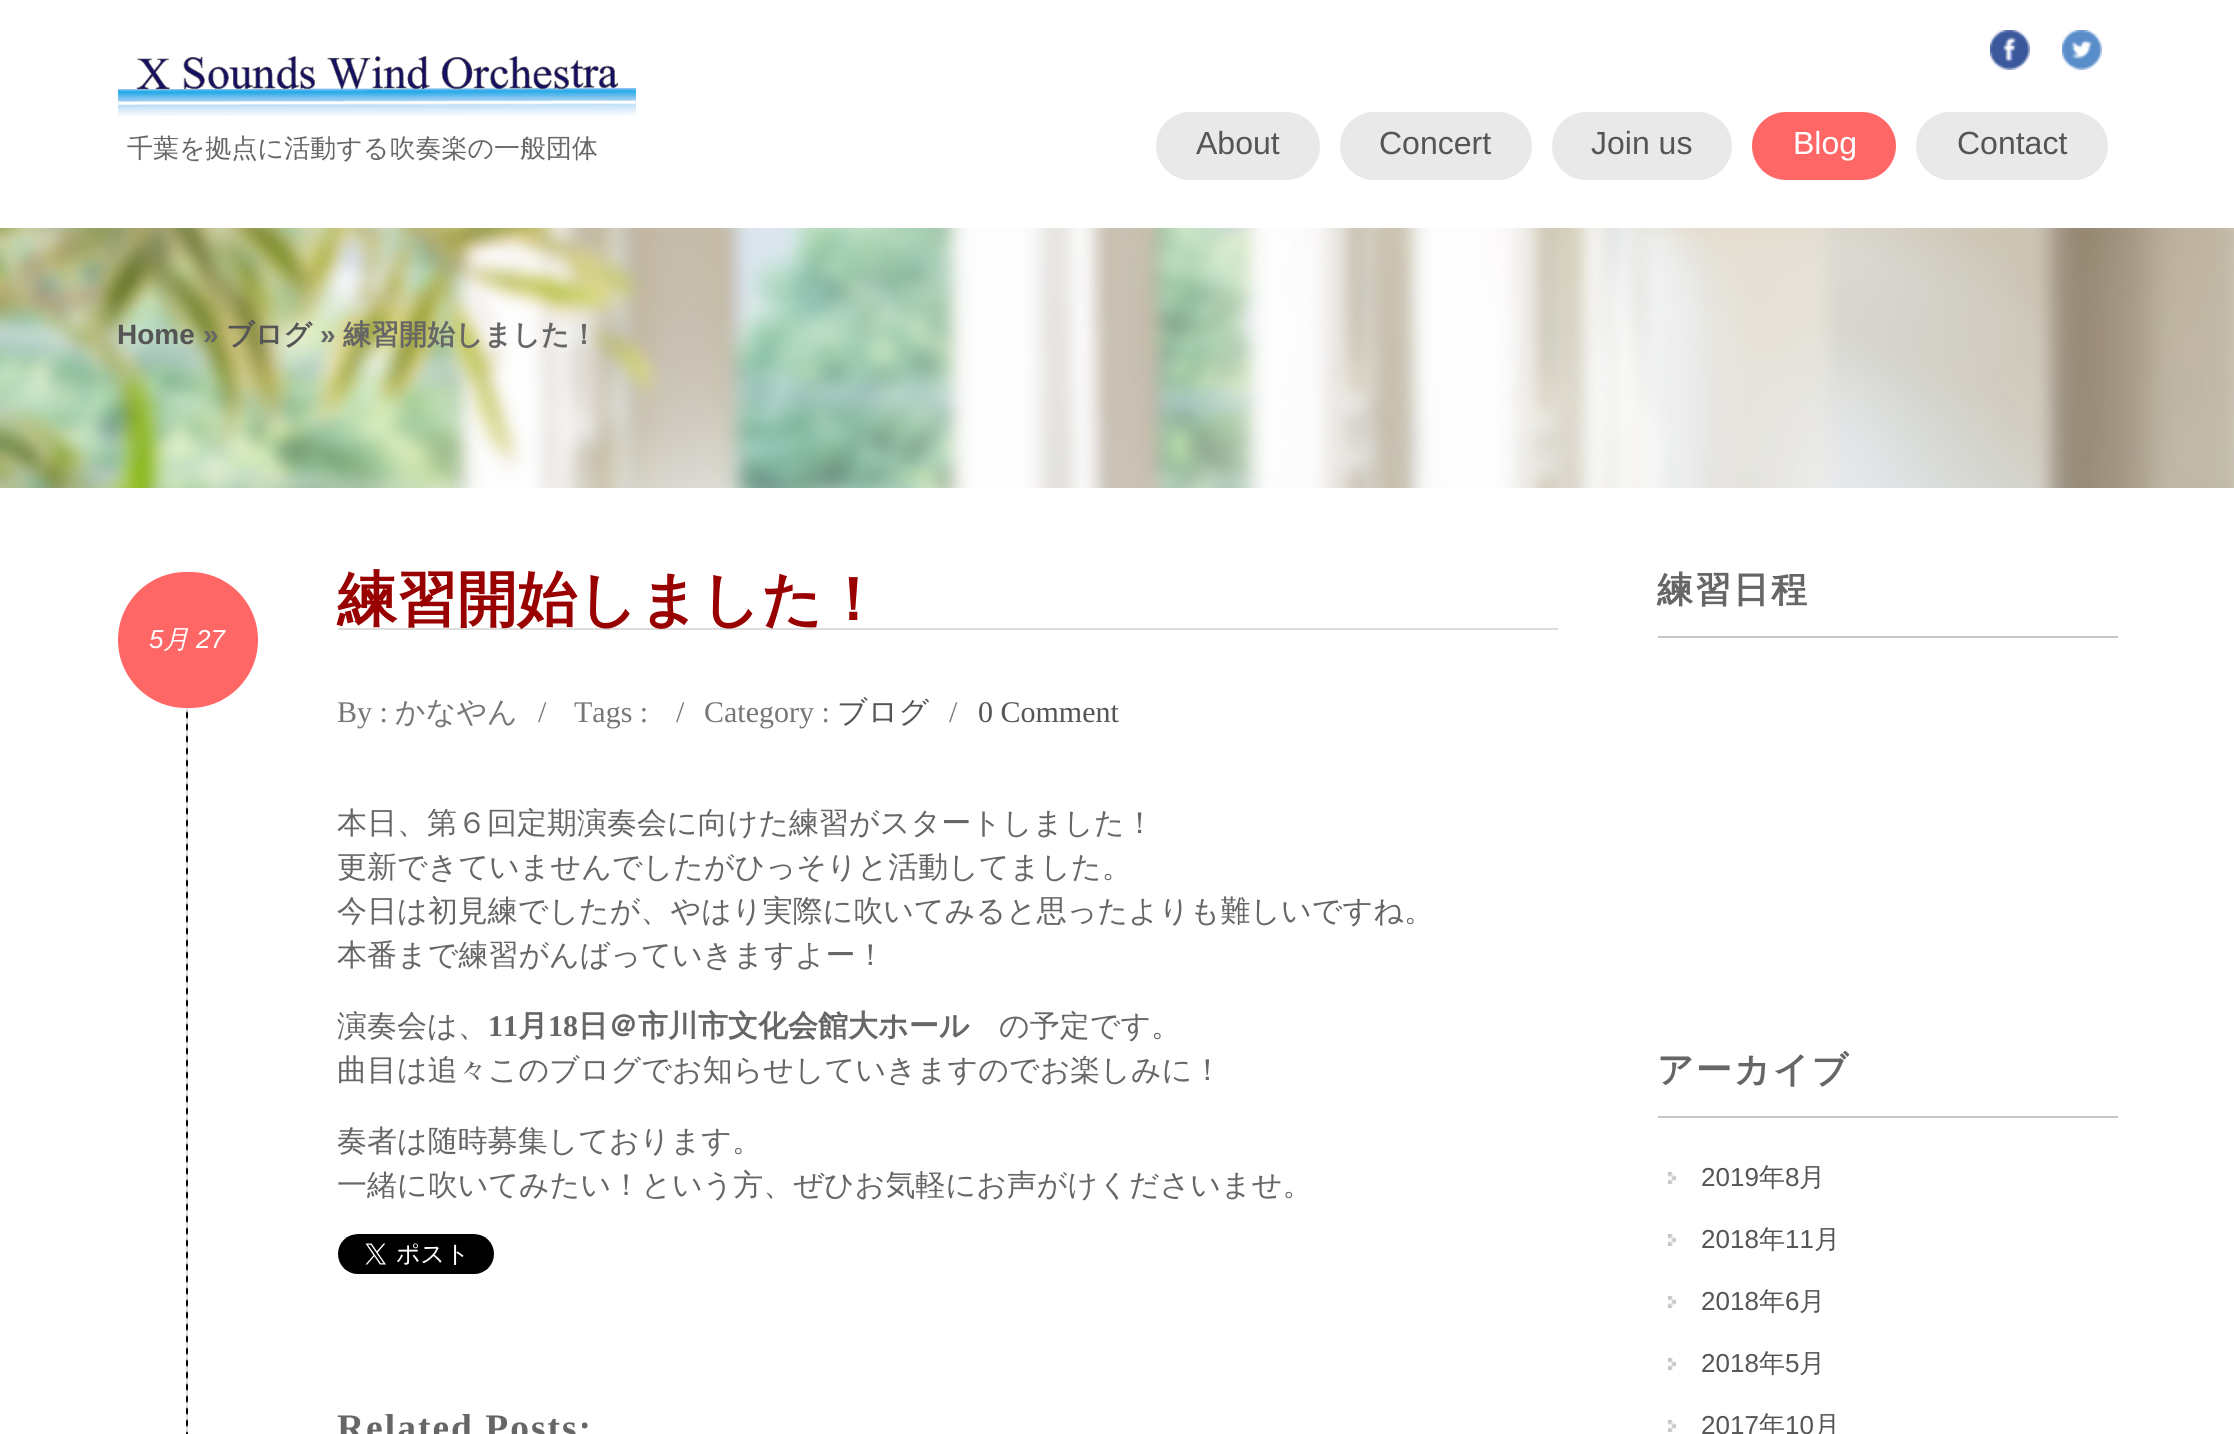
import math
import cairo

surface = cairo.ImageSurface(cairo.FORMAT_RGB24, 2234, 1434)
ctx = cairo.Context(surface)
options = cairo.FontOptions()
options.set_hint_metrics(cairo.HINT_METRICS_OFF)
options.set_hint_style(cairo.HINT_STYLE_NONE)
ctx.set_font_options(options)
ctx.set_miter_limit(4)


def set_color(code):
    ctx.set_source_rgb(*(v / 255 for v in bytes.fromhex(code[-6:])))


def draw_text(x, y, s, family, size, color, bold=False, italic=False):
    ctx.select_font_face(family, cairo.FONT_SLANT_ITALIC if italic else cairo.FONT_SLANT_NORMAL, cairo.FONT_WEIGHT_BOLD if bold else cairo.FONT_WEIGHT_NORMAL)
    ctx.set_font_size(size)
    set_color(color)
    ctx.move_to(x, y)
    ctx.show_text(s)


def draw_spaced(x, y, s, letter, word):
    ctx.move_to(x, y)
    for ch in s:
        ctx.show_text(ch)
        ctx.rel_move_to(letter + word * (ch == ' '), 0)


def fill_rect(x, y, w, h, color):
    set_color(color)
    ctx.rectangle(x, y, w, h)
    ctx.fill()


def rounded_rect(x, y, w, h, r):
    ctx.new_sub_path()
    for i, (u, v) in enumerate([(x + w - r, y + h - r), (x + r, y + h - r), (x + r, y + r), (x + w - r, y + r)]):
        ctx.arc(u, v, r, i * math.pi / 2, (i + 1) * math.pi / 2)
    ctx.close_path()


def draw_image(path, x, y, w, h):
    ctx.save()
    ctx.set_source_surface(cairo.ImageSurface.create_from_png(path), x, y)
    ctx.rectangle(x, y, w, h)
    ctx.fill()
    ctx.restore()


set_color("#ffffff")
ctx.paint()
draw_image("assets/img1.png", 118, 56, 518, 60)
draw_text(127, 157, "千葉を拠点に活動する吹奏楽の一般団体", "WenQuanYi Zen Hei Medium", 26, "#666666")
draw_image("assets/img2.png", 1990, 30, 40, 40)
draw_image("assets/img3.png", 2062, 30, 40, 40)
set_color("#e9e9e9")
rounded_rect(1156, 112, 164, 68, 34)
ctx.fill()
draw_text(1196, 154, "About", "Liberation Sans", 32, "#555555")
set_color("#e9e9e9")
rounded_rect(1340, 112, 192, 68, 34)
ctx.fill()
draw_text(1379, 154, "Concert", "Liberation Sans", 32, "#555555")
set_color("#e9e9e9")
rounded_rect(1552, 112, 180, 68, 34)
ctx.fill()
draw_text(1591, 154, "Join us", "Liberation Sans", 32, "#555555")
set_color("#ff6666")
rounded_rect(1752, 112, 144, 68, 34)
ctx.fill()
draw_text(1793, 154, "Blog", "Liberation Sans", 32, "#ffffff")
set_color("#e9e9e9")
rounded_rect(1916, 112, 192, 68, 34)
ctx.fill()
draw_text(1957, 154, "Contact", "Liberation Sans", 32, "#555555")
draw_image("assets/img4.png", 0, 228, 2234, 260)
draw_text(117, 344, "Home", "Liberation Sans", 28, "#555555", bold=True)
draw_text(203, 344, "»", "Liberation Sans", 28, "#666666", bold=True)
draw_text(226, 344, "ブログ", "WenQuanYi Zen Hei", 28, "#555555", bold=True)
draw_text(320, 344, "»", "Liberation Sans", 28, "#666666", bold=True)
draw_text(343, 344, "練習開始しました！", "WenQuanYi Zen Hei", 28, "#666666", bold=True)
draw_image("assets/img5.png", 186, 708, 2, 726)
set_color("#ff6666")
rounded_rect(118, 572, 140, 136, 68)
ctx.fill()
draw_text(149, 648, "5", "Liberation Sans", 26, "#ffffff", italic=True)
draw_text(163, 648, "月", "WenQuanYi Zen Hei Medium", 26, "#ffffff", italic=True)
draw_text(196, 648, "27", "Liberation Sans", 26, "#ffffff", italic=True)
fill_rect(338, 628, 1220, 2, "#dddddd")
draw_text(337, 620, "練習開始しました！", "WenQuanYi Zen Hei", 60, "#990000", bold=True)
draw_text(337, 722, "By :", "Liberation Serif", 30, "#777777")
draw_text(395, 722, "かなやん", "WenQuanYi Zen Hei Medium", 30, "#777777")
draw_text(538, 722, "/", "Liberation Serif", 30, "#777777")
draw_text(574, 722, "Tags :", "Liberation Serif", 30, "#777777")
draw_text(676, 722, "/", "Liberation Serif", 30, "#777777")
draw_text(704, 722, "Category :", "Liberation Serif", 30, "#777777")
draw_text(837, 722, "ブログ", "WenQuanYi Zen Hei Medium", 30, "#555555")
draw_text(949, 722, "/", "Liberation Serif", 30, "#777777")
draw_text(978, 722, "0 Comment", "Liberation Serif", 30, "#555555")
draw_text(337, 833, "本日、第６回定期演奏会に向けた練習がスタートしました！", "WenQuanYi Zen Hei Medium", 30, "#666666")
draw_text(337, 877, "更新できていませんでしたがひっそりと活動してました。", "WenQuanYi Zen Hei Medium", 30, "#666666")
draw_text(337, 921, "今日は初見練でしたが、やはり実際に吹いてみると思ったよりも難しいですね。", "WenQuanYi Zen Hei Medium", 30, "#666666")
draw_text(337, 965, "本番まで練習がんばっていきますよー！", "WenQuanYi Zen Hei Medium", 30, "#666666")
draw_text(337, 1036, "演奏会は、", "WenQuanYi Zen Hei Medium", 30, "#666666")
draw_text(488, 1036, "11", "Liberation Serif", 30, "#666666", bold=True)
draw_text(518, 1036, "月", "WenQuanYi Zen Hei", 30, "#666666", bold=True)
draw_text(548, 1036, "18", "Liberation Serif", 30, "#666666", bold=True)
draw_text(578, 1036, "日＠市川市文化会館大ホール", "WenQuanYi Zen Hei", 30, "#666666", bold=True)
draw_text(999, 1036, "の予定です。", "WenQuanYi Zen Hei Medium", 30, "#666666")
draw_text(337, 1080, "曲目は追々このブログでお知らせしていきますのでお楽しみに！", "WenQuanYi Zen Hei Medium", 30, "#666666")
draw_text(337, 1151, "奏者は随時募集しております。", "WenQuanYi Zen Hei Medium", 30, "#666666")
draw_text(337, 1195, "一緒に吹いてみたい！という方、ぜひお気軽にお声がけくださいませ。", "WenQuanYi Zen Hei Medium", 30, "#666666")
draw_image("assets/img6.png", 338, 1234, 156, 40)
ctx.select_font_face("Liberation Serif", cairo.FONT_SLANT_NORMAL, cairo.FONT_WEIGHT_BOLD)
ctx.set_font_size(37.5)
draw_spaced(337, 1440, "Related Posts:", 2, 0)
fill_rect(1658, 636, 460, 2, "#c7c7c7")
ctx.select_font_face("WenQuanYi Zen Hei", cairo.FONT_SLANT_NORMAL, cairo.FONT_WEIGHT_BOLD)
ctx.set_font_size(36)
set_color("#666666")
draw_spaced(1657, 602, "練習日程", 2, 0)
fill_rect(1658, 1116, 460, 2, "#c7c7c7")
set_color("#666666")
draw_spaced(1657, 1082, "アーカイブ", 2, 0)
draw_image("assets/img7.png", 1668, 1172, 8, 12)
draw_text(1701, 1186, "2019", "Liberation Sans", 26, "#555555")
draw_text(1759, 1186, "年", "WenQuanYi Zen Hei Medium", 26, "#555555")
draw_text(1785, 1186, "8", "Liberation Sans", 26, "#555555")
draw_text(1799, 1186, "月", "WenQuanYi Zen Hei Medium", 26, "#555555")
draw_image("assets/img7.png", 1668, 1234, 8, 12)
draw_text(1701, 1248, "2018", "Liberation Sans", 26, "#555555")
draw_text(1759, 1248, "年", "WenQuanYi Zen Hei Medium", 26, "#555555")
draw_text(1785, 1248, "11", "Liberation Sans", 26, "#555555")
draw_text(1814, 1248, "月", "WenQuanYi Zen Hei Medium", 26, "#555555")
draw_image("assets/img7.png", 1668, 1296, 8, 12)
draw_text(1701, 1310, "2018", "Liberation Sans", 26, "#555555")
draw_text(1759, 1310, "年", "WenQuanYi Zen Hei Medium", 26, "#555555")
draw_text(1785, 1310, "6", "Liberation Sans", 26, "#555555")
draw_text(1799, 1310, "月", "WenQuanYi Zen Hei Medium", 26, "#555555")
draw_image("assets/img7.png", 1668, 1358, 8, 12)
draw_text(1701, 1372, "2018", "Liberation Sans", 26, "#555555")
draw_text(1759, 1372, "年", "WenQuanYi Zen Hei Medium", 26, "#555555")
draw_text(1785, 1372, "5", "Liberation Sans", 26, "#555555")
draw_text(1799, 1372, "月", "WenQuanYi Zen Hei Medium", 26, "#555555")
draw_image("assets/img7.png", 1668, 1420, 8, 12)
draw_text(1701, 1434, "2017", "Liberation Sans", 26, "#555555")
draw_text(1759, 1434, "年", "WenQuanYi Zen Hei Medium", 26, "#555555")
draw_text(1785, 1434, "10", "Liberation Sans", 26, "#555555")
draw_text(1814, 1434, "月", "WenQuanYi Zen Hei Medium", 26, "#555555")
surface.write_to_png("output.png")
